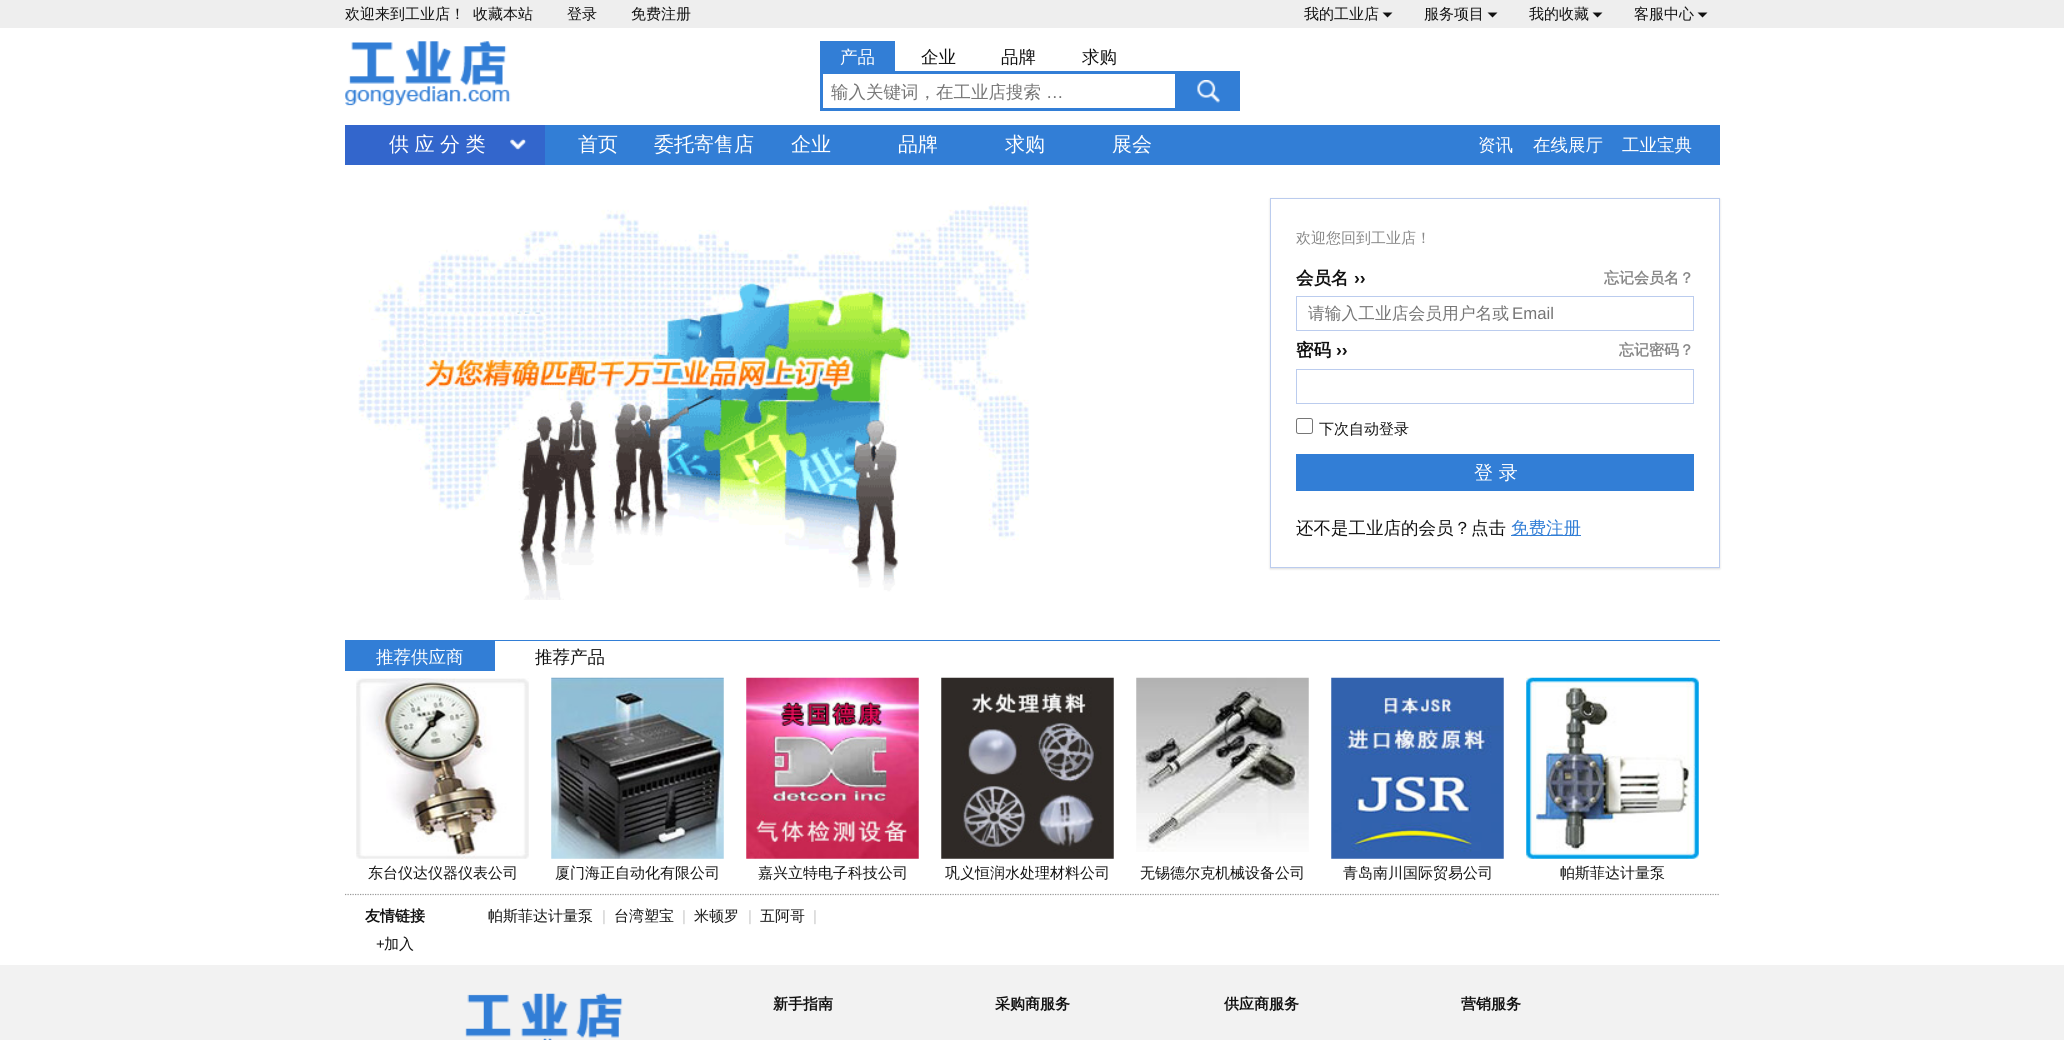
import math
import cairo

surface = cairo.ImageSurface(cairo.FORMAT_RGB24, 2064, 1040)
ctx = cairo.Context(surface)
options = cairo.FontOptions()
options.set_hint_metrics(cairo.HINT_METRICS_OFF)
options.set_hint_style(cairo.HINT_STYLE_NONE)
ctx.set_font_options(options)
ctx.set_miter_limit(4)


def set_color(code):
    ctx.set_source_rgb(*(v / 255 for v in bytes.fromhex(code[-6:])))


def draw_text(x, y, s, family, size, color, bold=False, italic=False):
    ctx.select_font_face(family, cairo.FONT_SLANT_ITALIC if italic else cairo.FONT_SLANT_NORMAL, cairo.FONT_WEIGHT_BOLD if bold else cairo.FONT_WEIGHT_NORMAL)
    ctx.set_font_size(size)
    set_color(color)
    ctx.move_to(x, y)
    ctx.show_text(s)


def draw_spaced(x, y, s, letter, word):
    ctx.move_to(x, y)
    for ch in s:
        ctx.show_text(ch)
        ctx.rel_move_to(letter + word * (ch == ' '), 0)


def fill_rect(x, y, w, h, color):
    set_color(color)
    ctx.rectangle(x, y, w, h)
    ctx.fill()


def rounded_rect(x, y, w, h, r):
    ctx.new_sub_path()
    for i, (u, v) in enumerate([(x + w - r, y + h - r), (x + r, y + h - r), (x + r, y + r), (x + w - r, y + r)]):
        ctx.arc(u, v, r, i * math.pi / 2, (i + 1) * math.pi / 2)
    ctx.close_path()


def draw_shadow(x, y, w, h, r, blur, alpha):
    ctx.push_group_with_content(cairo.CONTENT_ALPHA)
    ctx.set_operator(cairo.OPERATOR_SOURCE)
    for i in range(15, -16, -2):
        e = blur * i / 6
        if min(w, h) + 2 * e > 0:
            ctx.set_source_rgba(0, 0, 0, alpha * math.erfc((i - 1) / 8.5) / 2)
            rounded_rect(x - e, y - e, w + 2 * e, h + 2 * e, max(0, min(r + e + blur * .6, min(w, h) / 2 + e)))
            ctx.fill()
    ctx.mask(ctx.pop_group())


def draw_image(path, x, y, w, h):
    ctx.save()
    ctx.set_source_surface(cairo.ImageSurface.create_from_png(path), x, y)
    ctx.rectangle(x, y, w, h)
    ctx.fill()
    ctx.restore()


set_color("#ffffff")
ctx.paint()
fill_rect(0, 0, 2064, 28, "#eeeeee")
draw_text(345, 19, "欢迎来到工业店！", "WenQuanYi Zen Hei Medium", 15, "#111111")
draw_text(473, 19, "收藏本站", "WenQuanYi Zen Hei Medium", 15, "#111111")
draw_text(567, 19, "登录", "WenQuanYi Zen Hei Medium", 15, "#111111")
draw_text(631, 19, "免费注册", "WenQuanYi Zen Hei Medium", 15, "#111111")
draw_text(1304, 19, "我的工业店", "WenQuanYi Zen Hei Medium", 15, "#111111")
ctx.new_path()
ctx.move_to(1382.5, 12.5)
ctx.line_to(1392.5, 12.5)
ctx.line_to(1387.5, 17.5)
ctx.close_path()
ctx.fill()
draw_text(1424, 19, "服务项目", "WenQuanYi Zen Hei Medium", 15, "#111111")
ctx.new_path()
ctx.move_to(1487.5, 12.5)
ctx.line_to(1497.5, 12.5)
ctx.line_to(1492.5, 17.5)
ctx.close_path()
ctx.fill()
draw_text(1529, 19, "我的收藏", "WenQuanYi Zen Hei Medium", 15, "#111111")
ctx.new_path()
ctx.move_to(1592.5, 12.5)
ctx.line_to(1602.5, 12.5)
ctx.line_to(1597.5, 17.5)
ctx.close_path()
ctx.fill()
draw_text(1634, 19, "客服中心", "WenQuanYi Zen Hei Medium", 15, "#111111")
ctx.new_path()
ctx.move_to(1697.5, 12.5)
ctx.line_to(1707.5, 12.5)
ctx.line_to(1702.5, 17.5)
ctx.close_path()
ctx.fill()
draw_image("assets/img1.png", 345, 41, 166, 65)
fill_rect(820, 41, 75, 30, "#327ed6")
draw_text(840, 63, "产品", "WenQuanYi Zen Hei Medium", 17.5, "#ffffff")
draw_text(921, 63, "企业", "WenQuanYi Zen Hei Medium", 17.5, "#111111")
draw_text(1001, 63, "品牌", "WenQuanYi Zen Hei Medium", 17.5, "#111111")
draw_text(1082, 63, "求购", "WenQuanYi Zen Hei Medium", 17.5, "#111111")
ctx.rectangle(821.5, 72.5, 355, 37)
set_color("#327ed6")
ctx.set_line_width(3)
ctx.stroke()
draw_text(831, 98, "输入关键词，在工业店搜索", "WenQuanYi Zen Hei Medium", 17.5, "#757575")
draw_text(1046, 98, "…", "Liberation Sans", 17.5, "#757575")
fill_rect(1178, 71, 62, 40, "#327ed6")
draw_image("assets/img2.png", 1197, 80, 23, 23)
fill_rect(545, 125, 1175, 40, "#327ed6")
fill_rect(345, 125, 200, 40, "#3366cc")
draw_image("assets/img3.png", 510, 138, 17, 12)
ctx.select_font_face("WenQuanYi Zen Hei Medium")
ctx.set_font_size(20)
set_color("#ffffff")
draw_spaced(389, 151, "供 应 分 类", 0, -0.5)
draw_text(578, 151, "首页", "WenQuanYi Zen Hei Medium", 20, "#ffffff")
draw_text(654, 151, "委托寄售店", "WenQuanYi Zen Hei Medium", 20, "#ffffff")
draw_text(791, 151, "企业", "WenQuanYi Zen Hei Medium", 20, "#ffffff")
draw_text(898, 151, "品牌", "WenQuanYi Zen Hei Medium", 20, "#ffffff")
draw_text(1005, 151, "求购", "WenQuanYi Zen Hei Medium", 20, "#ffffff")
draw_text(1112, 151, "展会", "WenQuanYi Zen Hei Medium", 20, "#ffffff")
draw_text(1478, 151, "资讯", "WenQuanYi Zen Hei Medium", 17.5, "#ffffff")
draw_text(1533, 151, "在线展厅", "WenQuanYi Zen Hei Medium", 17.5, "#ffffff")
draw_text(1622, 151, "工业宝典", "WenQuanYi Zen Hei Medium", 17.5, "#ffffff")
draw_image("assets/img4.png", 358, 200, 671, 400)
ctx.save()
ctx.set_fill_rule(cairo.FILL_RULE_EVEN_ODD)
ctx.new_path()
ctx.move_to(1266, 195)
ctx.line_to(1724, 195)
ctx.line_to(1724, 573)
ctx.line_to(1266, 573)
ctx.close_path()
ctx.move_to(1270, 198)
ctx.line_to(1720, 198)
ctx.line_to(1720, 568)
ctx.line_to(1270, 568)
ctx.close_path()
ctx.clip()
set_color("#dddddd")
draw_shadow(1270, 199, 450, 370, 0, 1, 1)
ctx.restore()
ctx.rectangle(1270.5, 198.5, 449, 369)
set_color("#bbccee")
ctx.set_line_width(1)
ctx.stroke()
draw_text(1296, 243, "欢迎您回到工业店！", "WenQuanYi Zen Hei Medium", 15, "#888888")
draw_text(1296, 284, "会员名", "WenQuanYi Zen Hei", 17.5, "#111111", bold=True)
draw_text(1354, 284, "››", "Liberation Sans", 17.5, "#111111", bold=True)
draw_text(1604, 283, "忘记会员名？", "WenQuanYi Zen Hei", 15, "#888888", bold=True)
ctx.rectangle(1296.5, 296.5, 397, 34)
set_color("#bbccee")
ctx.stroke()
draw_text(1308, 319, "请输入工业店会员用户名或", "WenQuanYi Zen Hei Medium", 16.75, "#757575")
draw_text(1512, 319, "Email", "Liberation Sans", 16.75, "#757575")
draw_text(1296, 356, "密码", "WenQuanYi Zen Hei", 17.5, "#111111", bold=True)
draw_text(1336, 356, "››", "Liberation Sans", 17.5, "#111111", bold=True)
draw_text(1619, 355, "忘记密码？", "WenQuanYi Zen Hei", 15, "#888888", bold=True)
ctx.rectangle(1296.5, 369.5, 397, 34)
set_color("#bbccee")
ctx.stroke()
rounded_rect(1296.5, 418.5, 16, 15, 2)
set_color("#767676")
ctx.stroke()
draw_text(1319, 434, "下次自动登录", "WenQuanYi Zen Hei Medium", 15, "#111111")
fill_rect(1296, 454, 398, 37, "#327ed6")
draw_text(1474, 479, "登 录", "WenQuanYi Zen Hei Medium", 19, "#ffffff")
draw_text(1296, 534, "还不是工业店的会员？点击", "WenQuanYi Zen Hei Medium", 17.5, "#111111")
fill_rect(1511, 535, 70, 1, "#327ed6")
draw_text(1511, 534, "免费注册", "WenQuanYi Zen Hei Medium", 17.5, "#327ed6")
fill_rect(345, 640, 1375, 1, "#327ed6")
fill_rect(345, 641, 150, 30, "#327ed6")
draw_text(376, 663, "推荐供应商", "WenQuanYi Zen Hei Medium", 17.5, "#ffffff")
draw_text(535, 663, "推荐产品", "WenQuanYi Zen Hei Medium", 17.5, "#111111")
draw_image("assets/img5.png", 356, 678, 173, 181)
draw_text(368, 878, "东台仪达仪器仪表公司", "WenQuanYi Zen Hei Medium", 15, "#111111")
draw_image("assets/img6.png", 551, 677, 173, 182)
draw_text(555, 878, "厦门海正自动化有限公司", "WenQuanYi Zen Hei Medium", 15, "#111111")
draw_image("assets/img7.png", 746, 677, 173, 182)
draw_text(758, 878, "嘉兴立特电子科技公司", "WenQuanYi Zen Hei Medium", 15, "#111111")
draw_image("assets/img8.png", 941, 677, 173, 182)
draw_text(945, 878, "巩义恒润水处理材料公司", "WenQuanYi Zen Hei Medium", 15, "#111111")
draw_image("assets/img9.png", 1136, 677, 173, 175)
draw_text(1140, 878, "无锡德尔克机械设备公司", "WenQuanYi Zen Hei Medium", 15, "#111111")
draw_image("assets/img10.png", 1331, 677, 173, 182)
draw_text(1343, 878, "青岛南川国际贸易公司", "WenQuanYi Zen Hei Medium", 15, "#111111")
draw_image("assets/img11.png", 1526, 677, 173, 182)
draw_text(1560, 878, "帕斯菲达计量泵", "WenQuanYi Zen Hei Medium", 15, "#111111")
ctx.new_path()
ctx.move_to(345, 894.5)
ctx.line_to(1720, 894.5)
set_color("#999999")
ctx.set_line_width(1.2)
ctx.set_dash([1.25, 1.25])
ctx.stroke()
draw_text(365, 921, "友情链接", "WenQuanYi Zen Hei", 15, "#111111", bold=True)
draw_text(376, 949, "+", "Liberation Sans", 15, "#111111")
draw_text(384, 949, "加入", "WenQuanYi Zen Hei Medium", 15, "#111111")
draw_text(488, 921, "帕斯菲达计量泵", "WenQuanYi Zen Hei Medium", 15, "#111111")
draw_text(602, 921, "|", "Liberation Sans", 15, "#cccccc")
draw_text(614, 921, "台湾塑宝", "WenQuanYi Zen Hei Medium", 15, "#111111")
draw_text(682, 921, "|", "Liberation Sans", 15, "#cccccc")
draw_text(694, 921, "米顿罗", "WenQuanYi Zen Hei Medium", 15, "#111111")
draw_text(748, 921, "|", "Liberation Sans", 15, "#cccccc")
draw_text(760, 921, "五阿哥", "WenQuanYi Zen Hei Medium", 15, "#111111")
draw_text(813, 921, "|", "Liberation Sans", 15, "#cccccc")
fill_rect(0, 965, 2064, 75, "#f2f2f2")
draw_image("assets/img12.png", 465, 993, 158, 47)
draw_text(773, 1009, "新手指南", "WenQuanYi Zen Hei", 15, "#111111", bold=True)
draw_text(995, 1009, "采购商服务", "WenQuanYi Zen Hei", 15, "#111111", bold=True)
draw_text(1224, 1009, "供应商服务", "WenQuanYi Zen Hei", 15, "#111111", bold=True)
draw_text(1461, 1009, "营销服务", "WenQuanYi Zen Hei", 15, "#111111", bold=True)
surface.write_to_png("output.png")
